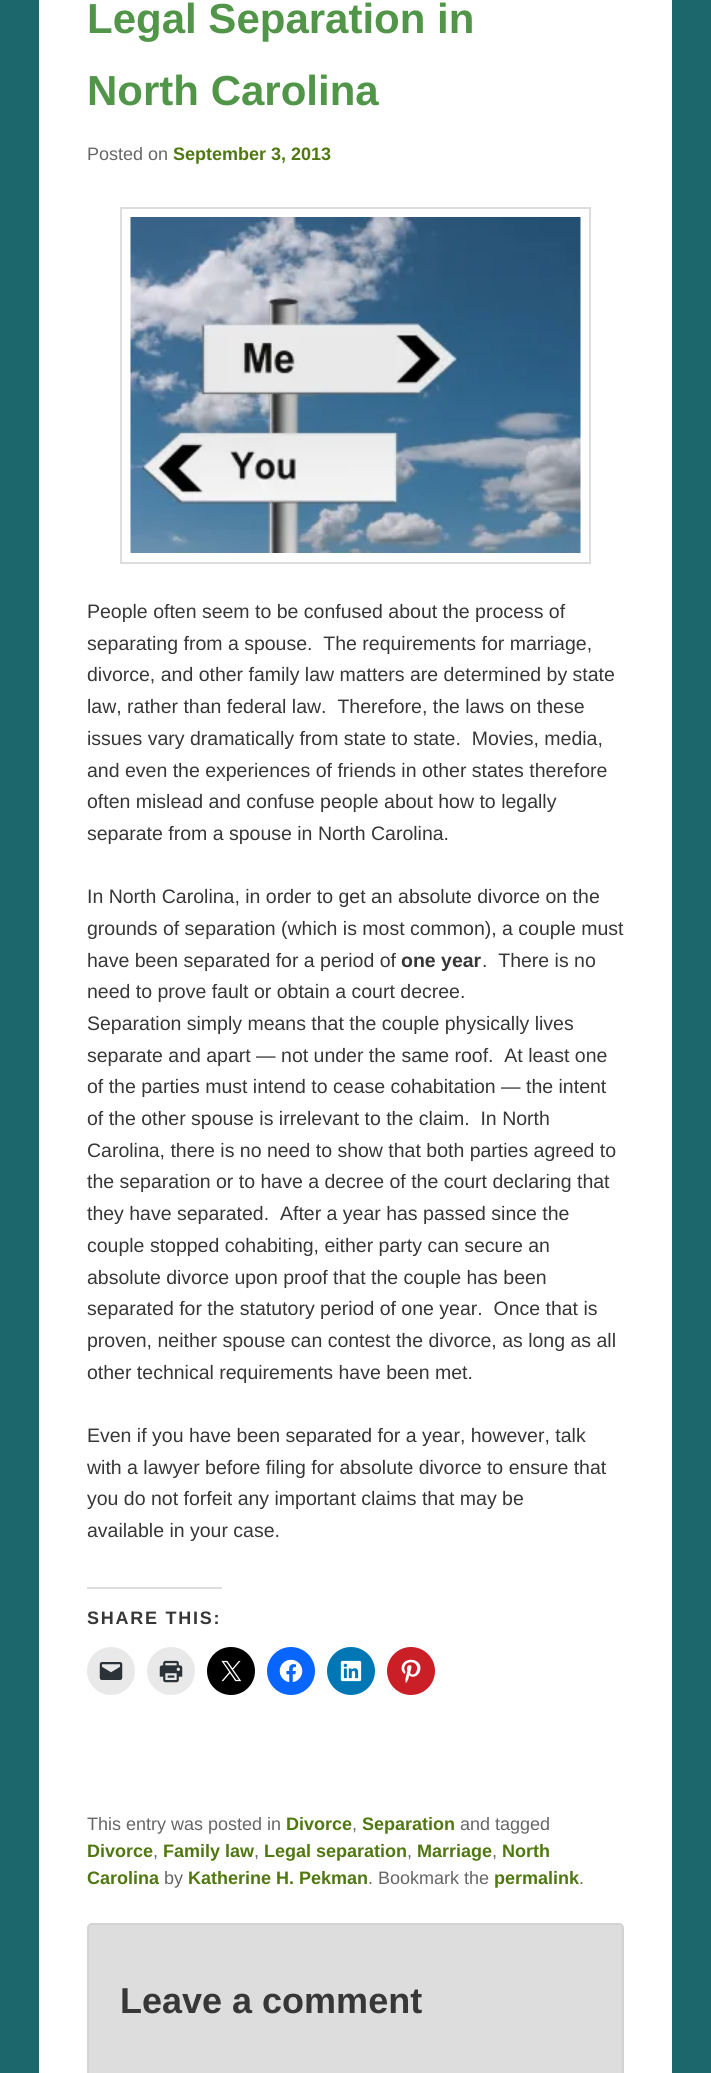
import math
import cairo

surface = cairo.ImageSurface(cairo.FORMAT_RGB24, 711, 2073)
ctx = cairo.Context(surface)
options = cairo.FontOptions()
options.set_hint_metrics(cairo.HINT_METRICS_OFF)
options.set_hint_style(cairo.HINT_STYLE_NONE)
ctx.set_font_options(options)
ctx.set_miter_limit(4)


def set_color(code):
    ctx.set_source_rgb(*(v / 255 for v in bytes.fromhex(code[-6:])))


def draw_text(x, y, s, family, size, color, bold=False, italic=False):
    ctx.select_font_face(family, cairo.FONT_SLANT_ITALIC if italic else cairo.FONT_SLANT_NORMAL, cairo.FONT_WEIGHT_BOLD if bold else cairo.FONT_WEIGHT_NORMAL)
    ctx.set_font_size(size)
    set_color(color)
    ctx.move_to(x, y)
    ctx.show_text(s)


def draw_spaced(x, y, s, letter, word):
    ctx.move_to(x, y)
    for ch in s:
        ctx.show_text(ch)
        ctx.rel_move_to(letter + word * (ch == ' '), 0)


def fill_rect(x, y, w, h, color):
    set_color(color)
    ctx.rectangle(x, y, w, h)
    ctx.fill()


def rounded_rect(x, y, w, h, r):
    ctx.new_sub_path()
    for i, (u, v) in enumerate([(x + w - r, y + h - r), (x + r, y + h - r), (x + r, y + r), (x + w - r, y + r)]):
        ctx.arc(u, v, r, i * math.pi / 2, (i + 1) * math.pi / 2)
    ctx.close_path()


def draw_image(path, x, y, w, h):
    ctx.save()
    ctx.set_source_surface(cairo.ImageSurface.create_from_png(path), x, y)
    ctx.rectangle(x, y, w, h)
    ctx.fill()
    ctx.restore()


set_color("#1b676b")
ctx.paint()
fill_rect(39, 0, 633, 2073, "#ffffff")
draw_text(87, 33, "Legal Separation in", "Liberation Sans", 42, "#519548", bold=True)
draw_text(87, 105, "North Carolina", "Liberation Sans", 42, "#519548", bold=True)
draw_text(87, 160, "Posted on", "Liberation Sans", 18, "#666666")
draw_text(173, 160, "September 3, 2013", "Liberation Sans", 18, "#507811", bold=True)
ctx.rectangle(121, 208, 469, 355)
set_color("#dddddd")
ctx.stroke()
draw_image("assets/img1.png", 130, 217, 451, 336)
draw_text(87, 618, "People often seem to be confused about the process of", "Liberation Sans", 19.5, "#373737")
draw_text(87, 650, "separating from a spouse.  The requirements for marriage,", "Liberation Sans", 19.5, "#373737")
draw_text(87, 681, "divorce, and other family law matters are determined by state", "Liberation Sans", 19.5, "#373737")
draw_text(87, 713, "law, rather than federal law.  Therefore, the laws on these", "Liberation Sans", 19.5, "#373737")
draw_text(87, 745, "issues vary dramatically from state to state.  Movies, media,", "Liberation Sans", 19.5, "#373737")
draw_text(87, 777, "and even the experiences of friends in other states therefore", "Liberation Sans", 19.5, "#373737")
draw_text(87, 808, "often mislead and confuse people about how to legally", "Liberation Sans", 19.5, "#373737")
draw_text(87, 840, "separate from a spouse in North Carolina.", "Liberation Sans", 19.5, "#373737")
draw_text(87, 903, "In North Carolina, in order to get an absolute divorce on the", "Liberation Sans", 19.5, "#373737")
draw_text(87, 935, "grounds of separation (which is most common), a couple must", "Liberation Sans", 19.5, "#373737")
draw_text(87, 967, "have been separated for a period of", "Liberation Sans", 19.5, "#373737")
draw_text(401, 967, "one year", "Liberation Sans", 19.5, "#373737", bold=True)
draw_text(482, 967, ".  There is no", "Liberation Sans", 19.5, "#373737")
draw_text(87, 998, "need to prove fault or obtain a court decree.", "Liberation Sans", 19.5, "#373737")
draw_text(87, 1030, "Separation simply means that the couple physically lives", "Liberation Sans", 19.5, "#373737")
draw_text(87, 1062, "separate and apart — not under the same roof.  At least one", "Liberation Sans", 19.5, "#373737")
draw_text(87, 1093, "of the parties must intend to cease cohabitation — the intent", "Liberation Sans", 19.5, "#373737")
draw_text(87, 1125, "of the other spouse is irrelevant to the claim.  In North", "Liberation Sans", 19.5, "#373737")
draw_text(87, 1157, "Carolina, there is no need to show that both parties agreed to", "Liberation Sans", 19.5, "#373737")
draw_text(87, 1188, "the separation or to have a decree of the court declaring that", "Liberation Sans", 19.5, "#373737")
draw_text(87, 1220, "they have separated.  After a year has passed since the", "Liberation Sans", 19.5, "#373737")
draw_text(87, 1252, "couple stopped cohabiting, either party can secure an", "Liberation Sans", 19.5, "#373737")
draw_text(87, 1284, "absolute divorce upon proof that the couple has been", "Liberation Sans", 19.5, "#373737")
draw_text(87, 1315, "separated for the statutory period of one year.  Once that is", "Liberation Sans", 19.5, "#373737")
draw_text(87, 1347, "proven, neither spouse can contest the divorce, as long as all", "Liberation Sans", 19.5, "#373737")
draw_text(87, 1379, "other technical requirements have been met.", "Liberation Sans", 19.5, "#373737")
draw_text(87, 1442, "Even if you have been separated for a year, however, talk", "Liberation Sans", 19.5, "#373737")
draw_text(87, 1474, "with a lawyer before filing for absolute divorce to ensure that", "Liberation Sans", 19.5, "#373737")
draw_text(87, 1505, "you do not forfeit any important claims that may be", "Liberation Sans", 19.5, "#373737")
draw_text(87, 1537, "available in your case.", "Liberation Sans", 19.5, "#373737")
fill_rect(87, 1587, 135, 2, "#dcdcde")
ctx.select_font_face("Liberation Sans", cairo.FONT_SLANT_NORMAL, cairo.FONT_WEIGHT_BOLD)
ctx.set_font_size(18)
set_color("#373737")
draw_spaced(87, 1624, "SHARE THIS:", 1.75, 0)
set_color("#e9e9e9")
ctx.new_path()
ctx.arc(111, 1671, 24, 0, 2 * math.pi)
ctx.fill()
draw_image("assets/img2.png", 99, 1662, 24, 18)
ctx.arc(171, 1671, 24, 0, 2 * math.pi)
ctx.fill()
draw_image("assets/img3.png", 159, 1660, 24, 23)
set_color("#000000")
ctx.arc(231, 1671, 24, 0, 2 * math.pi)
ctx.fill()
draw_image("assets/img4.png", 221, 1660, 21, 22)
set_color("#0866ff")
ctx.arc(291, 1671, 24, 0, 2 * math.pi)
ctx.fill()
draw_image("assets/img5.png", 279, 1659, 24, 23)
set_color("#0077b5")
ctx.arc(351, 1671, 24, 0, 2 * math.pi)
ctx.fill()
draw_image("assets/img6.png", 340, 1660, 22, 22)
set_color("#ca1f27")
ctx.arc(411, 1671, 24, 0, 2 * math.pi)
ctx.fill()
draw_image("assets/img7.png", 401, 1659, 20, 24)
draw_text(87, 1830, "This entry was posted in", "Liberation Sans", 18, "#666666")
draw_text(286, 1830, "Divorce", "Liberation Sans", 18, "#507811", bold=True)
draw_text(352, 1830, ",", "Liberation Sans", 18, "#666666")
draw_text(362, 1830, "Separation", "Liberation Sans", 18, "#507811", bold=True)
draw_text(460, 1830, "and tagged", "Liberation Sans", 18, "#666666")
draw_text(87, 1857, "Divorce", "Liberation Sans", 18, "#507811", bold=True)
draw_text(153, 1857, ",", "Liberation Sans", 18, "#666666")
draw_text(163, 1857, "Family law", "Liberation Sans", 18, "#507811", bold=True)
draw_text(254, 1857, ",", "Liberation Sans", 18, "#666666")
draw_text(264, 1857, "Legal separation", "Liberation Sans", 18, "#507811", bold=True)
draw_text(407, 1857, ",", "Liberation Sans", 18, "#666666")
draw_text(417, 1857, "Marriage", "Liberation Sans", 18, "#507811", bold=True)
draw_text(492, 1857, ",", "Liberation Sans", 18, "#666666")
draw_text(502, 1857, "North", "Liberation Sans", 18, "#507811", bold=True)
draw_text(87, 1884, "Carolina", "Liberation Sans", 18, "#507811", bold=True)
draw_text(164, 1884, "by", "Liberation Sans", 18, "#666666")
draw_text(188, 1884, "Katherine H. Pekman", "Liberation Sans", 18, "#507811", bold=True)
draw_text(368, 1884, ". Bookmark the", "Liberation Sans", 18, "#666666")
draw_text(494, 1884, "permalink", "Liberation Sans", 18, "#507811", bold=True)
draw_text(579, 1884, ".", "Liberation Sans", 18, "#666666")
set_color("#dddddd")
rounded_rect(88, 1924, 535, 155, 4)
ctx.fill_preserve()
set_color("#d3d3d3")
ctx.stroke()
draw_text(120, 2013, "Leave a comment", "Liberation Sans", 36, "#373737", bold=True)
surface.write_to_png("output.png")
